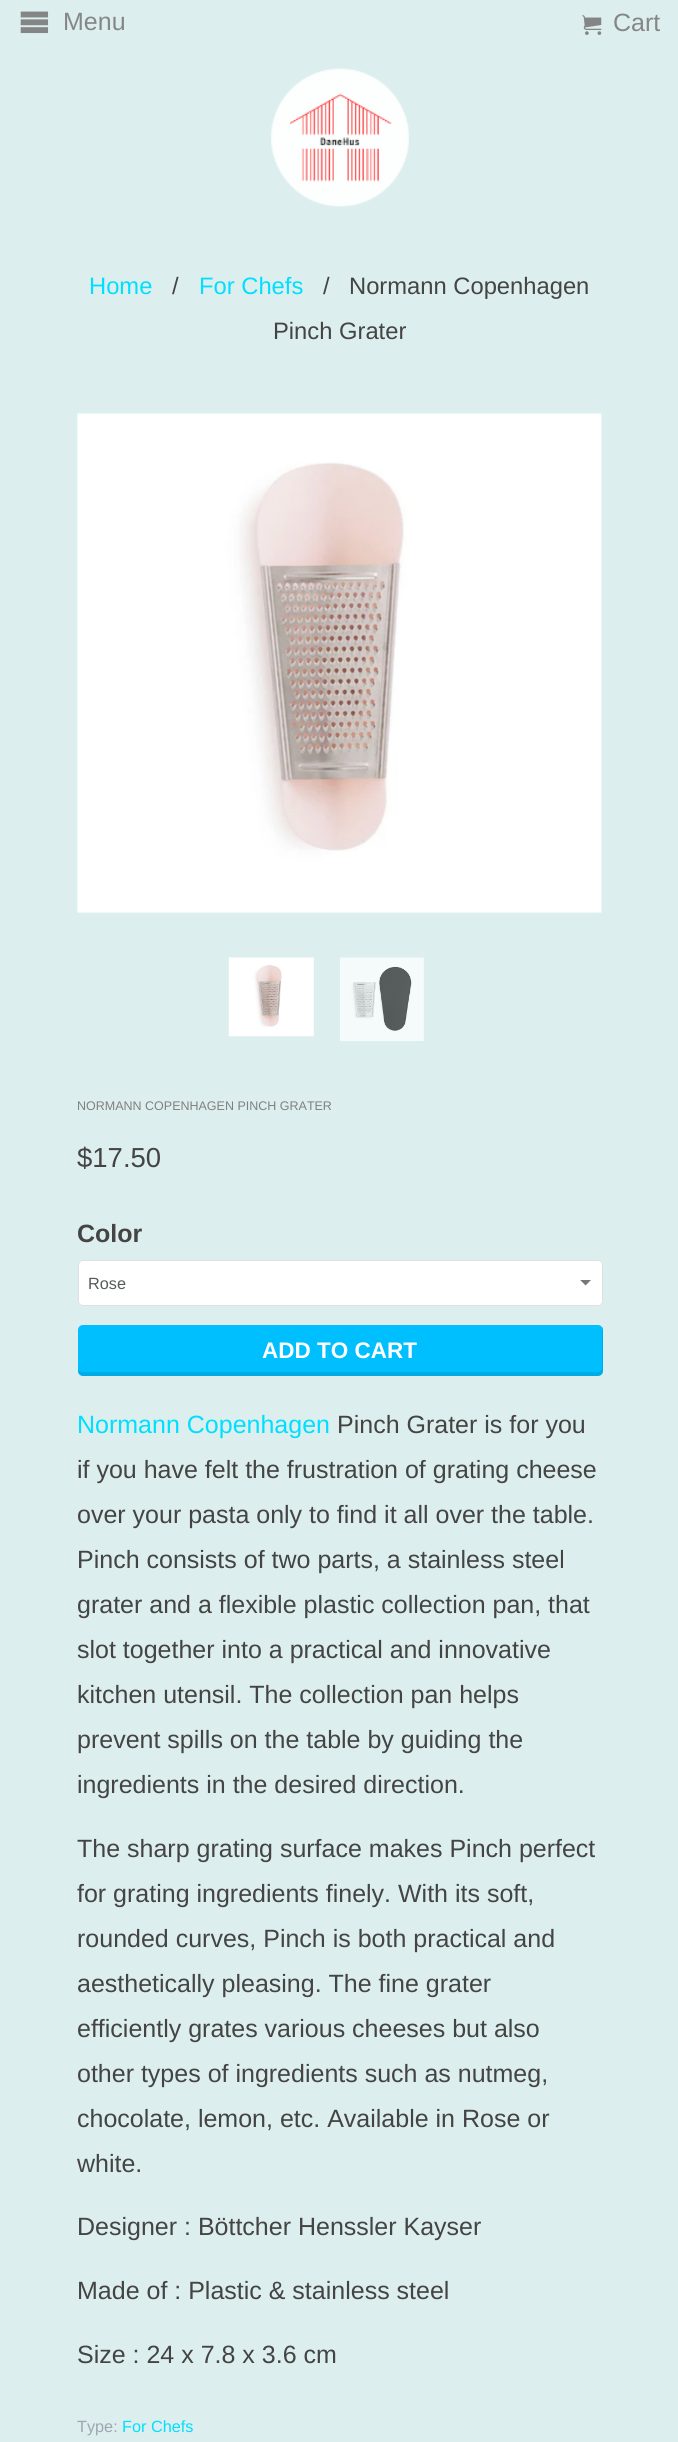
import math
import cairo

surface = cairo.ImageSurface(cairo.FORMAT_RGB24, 678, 2442)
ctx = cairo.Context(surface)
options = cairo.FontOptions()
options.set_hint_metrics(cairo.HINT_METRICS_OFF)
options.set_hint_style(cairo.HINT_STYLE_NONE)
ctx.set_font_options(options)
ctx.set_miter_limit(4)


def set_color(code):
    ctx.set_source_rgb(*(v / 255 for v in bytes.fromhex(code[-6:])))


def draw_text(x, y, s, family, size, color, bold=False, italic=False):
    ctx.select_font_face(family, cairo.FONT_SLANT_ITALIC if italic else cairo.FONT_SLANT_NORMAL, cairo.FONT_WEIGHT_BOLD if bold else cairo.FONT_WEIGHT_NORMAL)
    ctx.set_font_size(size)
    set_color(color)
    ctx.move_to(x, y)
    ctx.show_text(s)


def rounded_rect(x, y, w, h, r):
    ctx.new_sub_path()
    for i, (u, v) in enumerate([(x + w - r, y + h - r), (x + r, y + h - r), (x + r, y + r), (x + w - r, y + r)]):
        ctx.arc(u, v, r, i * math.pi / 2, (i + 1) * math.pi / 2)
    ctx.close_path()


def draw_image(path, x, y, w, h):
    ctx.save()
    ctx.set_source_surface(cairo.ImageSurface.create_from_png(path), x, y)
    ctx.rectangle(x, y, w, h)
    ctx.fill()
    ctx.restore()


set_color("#ddeeee")
ctx.paint()
draw_image("assets/img1.png", 20, 11, 29, 23)
draw_text(63, 30, "Menu", "Liberation Sans", 25, "#858686")
draw_image("assets/img2.png", 582, 15, 20, 20)
draw_text(613, 31, "Cart", "Liberation Sans", 25, "#858686")
draw_image("assets/img3.png", 271, 68, 138, 139)
draw_text(89, 294, "Home", "Liberation Sans", 23.75, "#00dfff")
draw_text(172, 294, "/", "Liberation Sans", 23.75, "#444444")
draw_text(199, 294, "For Chefs", "Liberation Sans", 23.75, "#00dfff")
draw_text(323, 294, "/", "Liberation Sans", 23.75, "#444444")
draw_text(349, 294, "Normann Copenhagen", "Liberation Sans", 23.75, "#444444")
draw_text(273, 339, "Pinch Grater", "Liberation Sans", 23.75, "#444444")
draw_image("assets/img4.png", 77, 413, 525, 500)
draw_image("assets/img5.png", 228, 957, 86, 80)
draw_image("assets/img6.png", 340, 957, 84, 84)
draw_text(77, 1110, "NORMANN COPENHAGEN PINCH GRATER", "Liberation Sans", 12.5, "#808080")
draw_text(77, 1167, "$17.50", "Liberation Sans", 27.5, "#444444")
draw_text(77, 1242, "Color", "Liberation Sans", 25, "#444444", bold=True)
set_color("#ffffff")
rounded_rect(78, 1260, 525, 46, 5)
ctx.fill()
draw_image("assets/img7.png", 580, 1280, 11, 6)
rounded_rect(78.5, 1260.5, 524, 45, 4.5)
set_color("#dce0e0")
ctx.set_line_width(1)
ctx.stroke()
draw_text(88, 1289, "Rose", "Liberation Sans", 16.25, "#565a5c")
set_color("#00bfff")
rounded_rect(78, 1325, 525, 51, 5)
ctx.fill()
ctx.set_source_rgba(0, 0, 0, 0.1)
ctx.new_path()
ctx.move_to(78, 1368)
ctx.line_to(78, 1371)
ctx.curve_to(78, 1374, 80, 1376, 83, 1376)
ctx.line_to(598, 1376)
ctx.curve_to(601, 1376, 603, 1374, 603, 1371)
ctx.line_to(603, 1330)
ctx.curve_to(603, 1329, 603, 1328, 602, 1327)
ctx.line_to(602, 1368)
ctx.curve_to(602, 1370, 600, 1372, 598, 1372)
ctx.line_to(82, 1372)
ctx.curve_to(80, 1372, 78, 1370, 78, 1368)
ctx.close_path()
ctx.fill()
draw_text(262, 1358, "ADD TO CART", "Liberation Sans", 22.5, "#ffffff", bold=True)
draw_text(77, 1433, "Normann Copenhagen", "Liberation Sans", 25, "#00dfff")
draw_text(337, 1433, "Pinch Grater is for you", "Liberation Sans", 25, "#444444")
draw_text(77, 1478, "if you have felt the frustration of grating cheese", "Liberation Sans", 25, "#444444")
draw_text(77, 1523, "over your pasta only to find it all over the table.", "Liberation Sans", 25, "#444444")
draw_text(77, 1568, "Pinch consists of two parts, a stainless steel", "Liberation Sans", 25, "#444444")
draw_text(77, 1613, "grater and a flexible plastic collection pan, that", "Liberation Sans", 25, "#444444")
draw_text(77, 1658, "slot together into a practical and innovative", "Liberation Sans", 25, "#444444")
draw_text(77, 1703, "kitchen utensil. The collection pan helps", "Liberation Sans", 25, "#444444")
draw_text(77, 1748, "prevent spills on the table by guiding the", "Liberation Sans", 25, "#444444")
draw_text(77, 1793, "ingredients in the desired direction.", "Liberation Sans", 25, "#444444")
draw_text(77, 1857, "The sharp grating surface makes Pinch perfect", "Liberation Sans", 25, "#444444")
draw_text(77, 1902, "for grating ingredients finely. With its soft,", "Liberation Sans", 25, "#444444")
draw_text(77, 1947, "rounded curves, Pinch is both practical and", "Liberation Sans", 25, "#444444")
draw_text(77, 1992, "aesthetically pleasing. The fine grater", "Liberation Sans", 25, "#444444")
draw_text(77, 2037, "efficiently grates various cheeses but also", "Liberation Sans", 25, "#444444")
draw_text(77, 2082, "other types of ingredients such as nutmeg,", "Liberation Sans", 25, "#444444")
draw_text(77, 2127, "chocolate, lemon, etc. Available in Rose or", "Liberation Sans", 25, "#444444")
draw_text(77, 2172, "white.", "Liberation Sans", 25, "#444444")
draw_text(77, 2235, "Designer : Böttcher Henssler Kayser", "Liberation Sans", 25, "#444444")
draw_text(77, 2299, "Made of : Plastic & stainless steel", "Liberation Sans", 25, "#444444")
draw_text(77, 2363, "Size : 24 x 7.8 x 3.6 cm", "Liberation Sans", 25, "#444444")
draw_text(77, 2432, "Type:", "Liberation Sans", 16.25, "#9da6ae")
draw_text(122, 2432, "For Chefs", "Liberation Sans", 16.25, "#00dfff")
surface.write_to_png("output.png")
